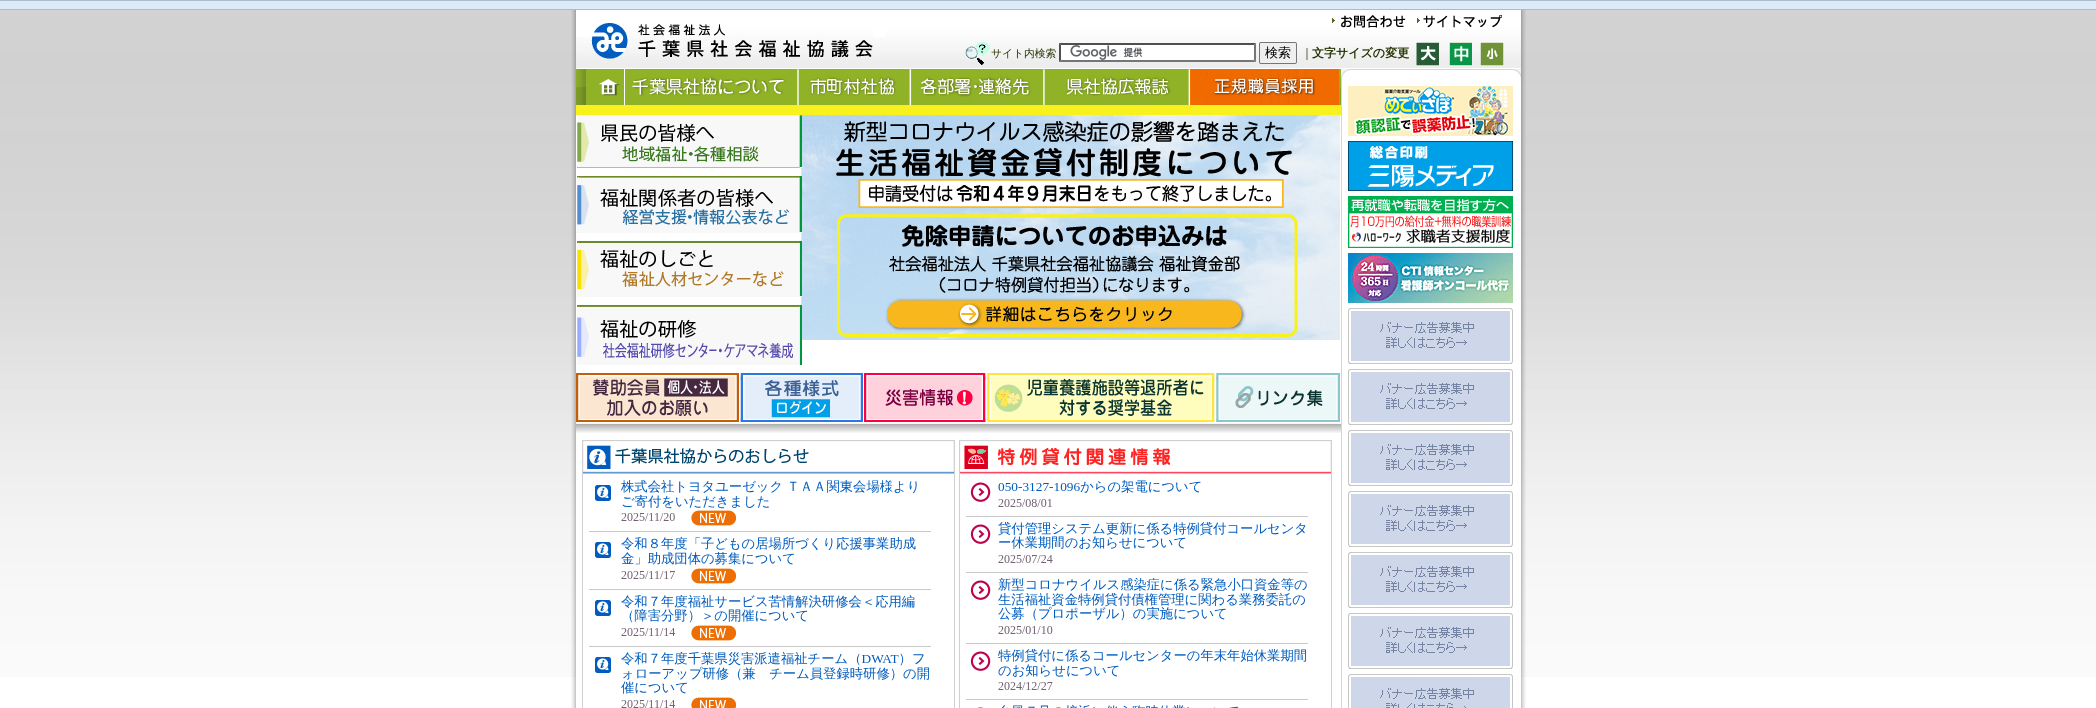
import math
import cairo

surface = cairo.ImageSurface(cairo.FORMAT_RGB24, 2096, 708)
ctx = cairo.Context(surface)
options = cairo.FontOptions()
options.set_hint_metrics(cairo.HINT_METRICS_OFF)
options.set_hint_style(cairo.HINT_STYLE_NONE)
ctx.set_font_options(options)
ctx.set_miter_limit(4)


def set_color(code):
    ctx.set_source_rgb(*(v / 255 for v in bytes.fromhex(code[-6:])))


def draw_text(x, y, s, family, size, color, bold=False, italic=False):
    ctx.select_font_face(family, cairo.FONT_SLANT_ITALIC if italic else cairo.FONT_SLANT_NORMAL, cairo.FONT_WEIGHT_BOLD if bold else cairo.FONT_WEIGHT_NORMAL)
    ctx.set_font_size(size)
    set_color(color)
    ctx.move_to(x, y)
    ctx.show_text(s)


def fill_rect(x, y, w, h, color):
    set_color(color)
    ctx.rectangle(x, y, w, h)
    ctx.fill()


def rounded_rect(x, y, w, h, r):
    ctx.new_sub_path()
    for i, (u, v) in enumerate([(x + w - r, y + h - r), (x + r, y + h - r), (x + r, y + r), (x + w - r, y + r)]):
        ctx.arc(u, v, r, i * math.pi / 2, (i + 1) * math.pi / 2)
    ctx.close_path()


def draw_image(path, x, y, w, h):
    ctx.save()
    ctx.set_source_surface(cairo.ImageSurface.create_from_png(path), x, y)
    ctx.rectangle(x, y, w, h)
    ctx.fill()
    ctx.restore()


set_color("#ffffff")
ctx.paint()
draw_image("assets/img1.png", 0, 10, 2096, 667)
fill_rect(0, 1, 2096, 8, "#ddebf9")
fill_rect(0, 0, 2096, 1, "#aabccf")
fill_rect(0, 9, 2096, 1, "#aabccf")
draw_image("assets/img2.png", 571, 10, 955, 698)
draw_image("assets/img3.png", 576, 37, 310, 31)
draw_image("assets/img4.png", 591, 23, 282, 36)
draw_image("assets/img5.png", 886, 10, 635, 59)
draw_image("assets/img6.png", 1332, 15, 74, 13)
draw_image("assets/img7.png", 1417, 15, 85, 13)
draw_image("assets/img8.png", 965, 42, 25, 23)
draw_text(991, 57, "サイト内検索", "WenQuanYi Zen Hei Medium", 10.75, "#233200")
fill_rect(1059, 43, 197, 19, "#ffffff")
draw_image("assets/img9.png", 1070, 45, 73, 15)
set_color("#4f4f4f")
ctx.new_path()
ctx.move_to(1059, 43)
ctx.line_to(1256, 43)
ctx.line_to(1254, 45)
ctx.line_to(1061, 45)
ctx.close_path()
ctx.fill()
set_color("#767676")
ctx.new_path()
ctx.move_to(1256, 43)
ctx.line_to(1256, 62)
ctx.line_to(1254, 60)
ctx.line_to(1254, 45)
ctx.close_path()
ctx.fill()
ctx.new_path()
ctx.move_to(1256, 62)
ctx.line_to(1059, 62)
ctx.line_to(1061, 60)
ctx.line_to(1254, 60)
ctx.close_path()
ctx.fill()
set_color("#4f4f4f")
ctx.new_path()
ctx.move_to(1059, 62)
ctx.line_to(1059, 43)
ctx.line_to(1061, 45)
ctx.line_to(1061, 60)
ctx.close_path()
ctx.fill()
set_color("#efefef")
rounded_rect(1259.5, 42.5, 37, 21, 1.5)
ctx.fill_preserve()
set_color("#767676")
ctx.set_line_width(1)
ctx.stroke()
draw_text(1265, 57, "検索", "WenQuanYi Zen Hei Medium", 13, "#000000")
draw_text(1301, 57, "｜", "WenQuanYi Zen Hei Medium", 12, "#233200")
draw_text(1312, 57, "文字サイズの変更", "WenQuanYi Zen Hei", 12, "#233200", bold=True)
draw_image("assets/img10.png", 1416, 42, 23, 24)
draw_image("assets/img11.png", 1449, 42, 23, 24)
draw_image("assets/img12.png", 1480, 42, 24, 24)
draw_image("assets/img13.png", 1341, 78, 180, 630)
draw_image("assets/img14.png", 1340, 69, 1, 36)
draw_image("assets/img15.png", 576, 69, 48, 36)
draw_image("assets/img16.png", 624, 69, 173, 36)
draw_image("assets/img17.png", 797, 69, 113, 36)
draw_image("assets/img18.png", 910, 69, 133, 36)
draw_image("assets/img19.png", 1043, 69, 145, 36)
draw_image("assets/img20.png", 1188, 69, 152, 36)
fill_rect(576, 105, 765, 10, "#f8f11d")
draw_image("assets/img25.png", 801, 115, 539, 97)
draw_image("assets/img21.png", 577, 115, 225, 53)
draw_image("assets/img26.png", 801, 212, 539, 128)
draw_image("assets/img22.png", 577, 176, 225, 57)
draw_image("assets/img23.png", 577, 241, 225, 56)
draw_image("assets/img24.png", 577, 305, 225, 60)
draw_image("assets/img27.png", 576, 373, 163, 49)
draw_image("assets/img28.png", 740, 373, 123, 49)
draw_image("assets/img29.png", 864, 373, 122, 49)
draw_image("assets/img30.png", 987, 373, 228, 49)
draw_image("assets/img31.png", 1216, 373, 124, 49)
draw_image("assets/img32.png", 576, 423, 765, 10)
fill_rect(582, 440, 373, 268, "#d0d0d0")
draw_image("assets/img33.png", 583, 441, 371, 33)
draw_image("assets/img34.png", 583, 474, 371, 234)
fill_rect(959, 440, 373, 268, "#d0d0d0")
draw_image("assets/img35.png", 960, 441, 371, 33)
draw_image("assets/img36.png", 960, 474, 371, 234)
draw_image("assets/img37.png", 1341, 69, 180, 9)
draw_image("assets/img38.png", 1348, 86, 165, 50)
draw_image("assets/img39.png", 1348, 141, 165, 50)
draw_image("assets/img40.png", 1348, 196, 165, 52)
draw_image("assets/img41.png", 1348, 253, 165, 50)
draw_image("assets/img42.png", 1348, 308, 165, 56)
draw_image("assets/img42.png", 1348, 369, 165, 56)
draw_image("assets/img42.png", 1348, 430, 165, 56)
draw_image("assets/img42.png", 1348, 491, 165, 56)
draw_image("assets/img42.png", 1348, 552, 165, 56)
draw_image("assets/img42.png", 1348, 613, 165, 56)
draw_image("assets/img43.png", 1348, 674, 165, 34)
surface.write_to_png("output.png")
